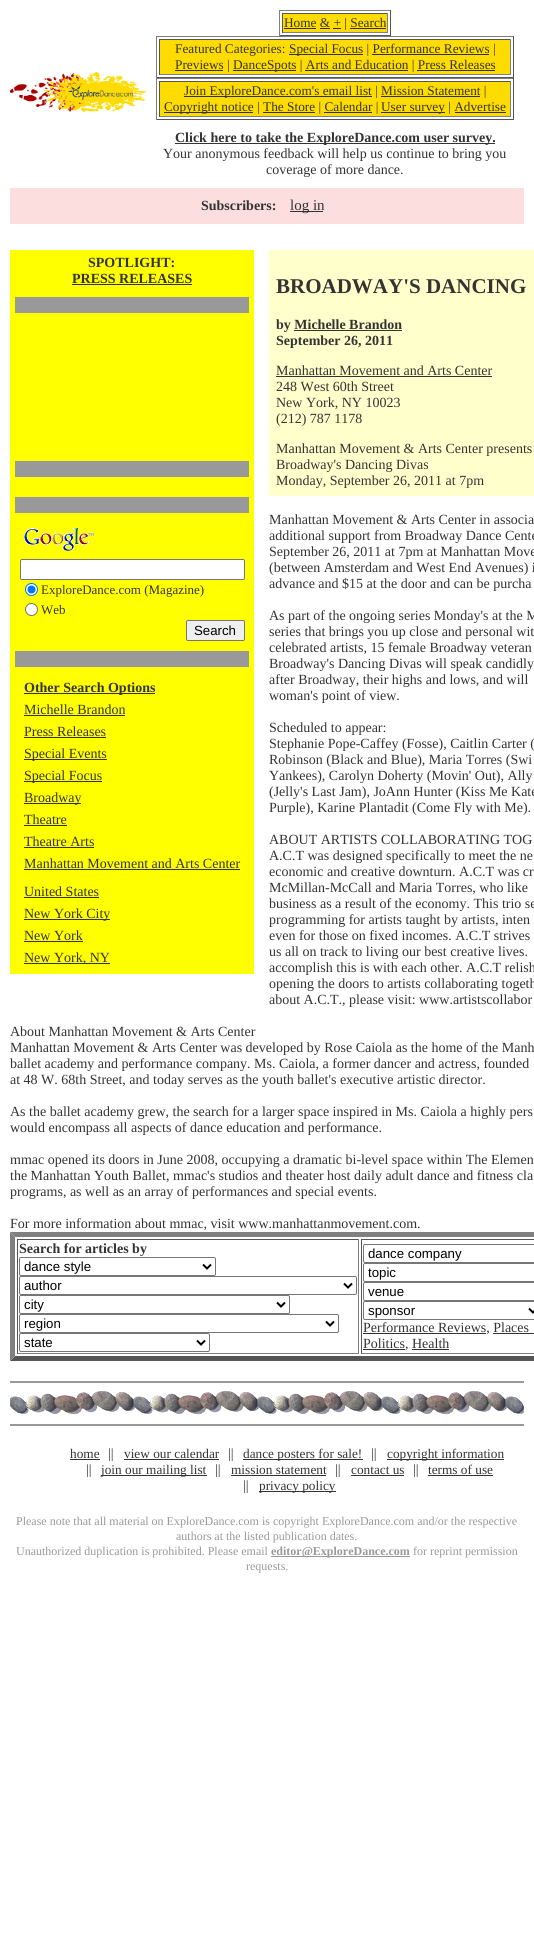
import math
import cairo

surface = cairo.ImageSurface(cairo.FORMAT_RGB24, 534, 1959)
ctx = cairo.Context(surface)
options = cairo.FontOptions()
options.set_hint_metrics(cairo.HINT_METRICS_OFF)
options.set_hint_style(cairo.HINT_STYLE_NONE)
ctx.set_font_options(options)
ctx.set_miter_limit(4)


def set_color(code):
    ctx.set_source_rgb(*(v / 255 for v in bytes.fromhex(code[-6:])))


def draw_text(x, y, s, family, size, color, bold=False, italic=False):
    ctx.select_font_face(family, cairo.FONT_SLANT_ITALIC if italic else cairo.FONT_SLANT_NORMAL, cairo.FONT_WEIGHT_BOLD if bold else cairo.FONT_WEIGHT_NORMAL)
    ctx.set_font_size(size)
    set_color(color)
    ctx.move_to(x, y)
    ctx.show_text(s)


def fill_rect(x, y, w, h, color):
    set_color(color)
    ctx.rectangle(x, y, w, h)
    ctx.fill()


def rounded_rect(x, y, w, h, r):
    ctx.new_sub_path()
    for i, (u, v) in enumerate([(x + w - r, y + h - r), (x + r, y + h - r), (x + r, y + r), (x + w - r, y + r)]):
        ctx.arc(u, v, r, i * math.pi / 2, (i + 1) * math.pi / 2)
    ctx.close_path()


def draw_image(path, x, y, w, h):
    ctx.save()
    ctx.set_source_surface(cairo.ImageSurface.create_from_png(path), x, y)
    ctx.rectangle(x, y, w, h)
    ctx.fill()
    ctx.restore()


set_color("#ffffff")
ctx.paint()
draw_image("assets/img1.png", 10, 72, 136, 40)
fill_rect(279, 10, 112, 1, "#808080")
fill_rect(390, 10, 1, 26, "#555555")
fill_rect(279, 35, 112, 1, "#555555")
fill_rect(279, 10, 1, 26, "#808080")
fill_rect(283, 14, 104, 18, "#fedc00")
fill_rect(282, 13, 106, 1, "#555555")
fill_rect(387, 13, 1, 20, "#808080")
fill_rect(282, 32, 106, 1, "#808080")
fill_rect(282, 13, 1, 20, "#555555")
fill_rect(284, 28, 32, 1, "#333333")
draw_text(284, 27, "Home & + | Search", "Liberation Serif", 13.3, "#333333")
fill_rect(320, 28, 10, 1, "#333333")
fill_rect(333, 28, 8, 1, "#333333")
fill_rect(350, 28, 36, 1, "#333333")
fill_rect(156, 36, 358, 1, "#808080")
fill_rect(513, 36, 1, 42, "#555555")
fill_rect(156, 77, 358, 1, "#555555")
fill_rect(156, 36, 1, 42, "#808080")
fill_rect(160, 40, 350, 34, "#fedc00")
fill_rect(159, 39, 352, 1, "#555555")
fill_rect(510, 39, 1, 36, "#808080")
fill_rect(159, 74, 352, 1, "#808080")
fill_rect(159, 39, 1, 36, "#555555")
draw_text(175, 53, "Featured Categories:", "Liberation Serif", 13.3, "#333333")
fill_rect(289, 54, 74, 1, "#333333")
draw_text(289, 53, "Special Focus | Performance Reviews |", "Liberation Serif", 13.3, "#333333")
fill_rect(372, 54, 117, 1, "#333333")
fill_rect(175, 70, 48, 1, "#333333")
draw_text(175, 69, "Previews |", "Liberation Serif", 13.3, "#333333")
fill_rect(233, 70, 63, 1, "#333333")
draw_text(233, 69, "DanceSpots | Arts and Education | Press Releases", "Liberation Serif", 13.3, "#333333")
fill_rect(305, 70, 103, 1, "#333333")
fill_rect(417, 70, 78, 1, "#333333")
fill_rect(156, 78, 358, 1, "#808080")
fill_rect(513, 78, 1, 42, "#555555")
fill_rect(156, 119, 358, 1, "#555555")
fill_rect(156, 78, 1, 42, "#808080")
fill_rect(160, 82, 350, 34, "#fedc00")
fill_rect(159, 81, 352, 1, "#555555")
fill_rect(510, 81, 1, 36, "#808080")
fill_rect(159, 116, 352, 1, "#808080")
fill_rect(159, 81, 1, 36, "#555555")
fill_rect(184, 96, 188, 1, "#333333")
draw_text(184, 95, "Join ExploreDance.com's email list | Mission Statement |", "Liberation Serif", 13.3, "#333333")
fill_rect(381, 96, 99, 1, "#333333")
fill_rect(164, 112, 89, 1, "#333333")
draw_text(164, 111, "Copyright notice | The Store | Calendar |", "Liberation Serif", 13.3, "#333333")
fill_rect(381, 112, 64, 1, "#333333")
draw_text(381, 111, "User survey | Advertise", "Liberation Serif", 13.3, "#333333")
fill_rect(263, 112, 52, 1, "#333333")
fill_rect(324, 112, 48, 1, "#333333")
fill_rect(455, 112, 51, 1, "#333333")
fill_rect(175, 143, 320, 1, "#333333")
draw_text(175, 142, "Click here to take the ExploreDance.com user survey.", "Liberation Serif", 14, "#333333", bold=True)
draw_text(163, 158, "Your anonymous feedback will help us continue to bring you", "Liberation Serif", 14, "#333333")
draw_text(266, 174, "coverage of more dance.", "Liberation Serif", 14, "#333333")
fill_rect(10, 188, 514, 36, "#fcdede")
draw_text(201, 210, "Subscribers:", "Liberation Serif", 14, "#333333", bold=True)
fill_rect(290, 211, 33, 1, "#333333")
draw_text(290, 210, "log in", "Liberation Serif", 15, "#333333")
fill_rect(10, 250, 244, 724, "#ffff00")
draw_text(88, 267, "SPOTLIGHT:", "Liberation Serif", 14, "#333333", bold=True)
draw_text(72, 283, "PRESS RELEASES", "Liberation Serif", 14, "#333333", bold=True)
fill_rect(72, 284, 120, 1, "#333333")
fill_rect(15, 297, 234, 16, "#999999")
fill_rect(15, 461, 234, 16, "#999999")
fill_rect(15, 497, 234, 16, "#999999")
draw_image("assets/img2.png", 24, 528, 70, 23)
set_color("#ffffff")
rounded_rect(20.5, 559.5, 224, 20, 1.5)
ctx.fill_preserve()
set_color("#767676")
ctx.set_line_width(1)
ctx.stroke()
set_color("#ffffff")
ctx.arc(31.5, 589.5, 6, 0, 2 * math.pi)
ctx.fill_preserve()
set_color("#0075ff")
ctx.stroke()
ctx.arc(31.5, 589.5, 4, 0, 2 * math.pi)
ctx.fill()
draw_text(41, 594, "ExploreDance.com (Magazine)", "Liberation Serif", 13, "#333333")
set_color("#ffffff")
ctx.new_path()
ctx.arc(31.5, 609.5, 6, 0, 2 * math.pi)
ctx.fill_preserve()
set_color("#767676")
ctx.stroke()
draw_text(41, 614, "Web", "Liberation Serif", 13, "#333333")
set_color("#efefef")
rounded_rect(186.5, 620.5, 58, 20, 1.5)
ctx.fill_preserve()
set_color("#767676")
ctx.stroke()
draw_text(194, 635, "Search", "Liberation Sans", 13.25, "#000000")
fill_rect(15, 651, 234, 16, "#999999")
fill_rect(24, 693, 131, 1, "#333333")
draw_text(24, 692, "Other Search Options", "Liberation Serif", 14, "#333333", bold=True)
draw_text(24, 714, "Michelle Brandon", "Liberation Serif", 14, "#333333")
fill_rect(24, 715, 101, 1, "#333333")
draw_text(24, 736, "Press Releases", "Liberation Serif", 14, "#333333")
fill_rect(24, 737, 82, 1, "#333333")
fill_rect(24, 759, 83, 1, "#333333")
draw_text(24, 758, "Special Events", "Liberation Serif", 14, "#333333")
fill_rect(24, 781, 78, 1, "#333333")
draw_text(24, 780, "Special Focus", "Liberation Serif", 14, "#333333")
fill_rect(24, 803, 57, 1, "#333333")
draw_text(24, 802, "Broadway", "Liberation Serif", 14, "#333333")
draw_text(24, 824, "Theatre", "Liberation Serif", 14, "#333333")
fill_rect(24, 825, 43, 1, "#333333")
draw_text(24, 846, "Theatre Arts", "Liberation Serif", 14, "#333333")
fill_rect(24, 847, 70, 1, "#333333")
draw_text(24, 868, "Manhattan Movement and Arts Center", "Liberation Serif", 14, "#333333")
fill_rect(24, 869, 216, 1, "#333333")
draw_text(24, 896, "United States", "Liberation Serif", 14, "#333333")
fill_rect(24, 897, 75, 1, "#333333")
fill_rect(24, 919, 86, 1, "#333333")
draw_text(24, 918, "New York City", "Liberation Serif", 14, "#333333")
draw_text(24, 940, "New York", "Liberation Serif", 14, "#333333")
fill_rect(24, 941, 59, 1, "#333333")
fill_rect(24, 963, 86, 1, "#333333")
draw_text(24, 962, "New York, NY", "Liberation Serif", 14, "#333333")
fill_rect(269, 250, 265, 246, "#ffffcc")
draw_text(276, 293, "BROADWAY'S DANCING", "Liberation Serif", 21, "#333333", bold=True)
draw_text(276, 329, "by Michelle Brandon", "Liberation Serif", 14, "#333333", bold=True)
fill_rect(294, 330, 108, 1, "#333333")
draw_text(276, 345, "September 26, 2011", "Liberation Serif", 14, "#333333", bold=True)
draw_text(276, 375, "Manhattan Movement and Arts Center", "Liberation Serif", 14, "#333333")
fill_rect(276, 376, 216, 1, "#333333")
draw_text(276, 391, "248 West 60th Street", "Liberation Serif", 14, "#333333")
draw_text(276, 407, "New York, NY 10023", "Liberation Serif", 14, "#333333")
draw_text(276, 423, "(212) 787 1178", "Liberation Serif", 14, "#333333")
draw_text(276, 453, "Manhattan Movement & Arts Center presents", "Liberation Serif", 14, "#333333")
draw_text(276, 469, "Broadway's Dancing Divas", "Liberation Serif", 14, "#333333")
draw_text(276, 485, "Monday, September 26, 2011 at 7pm", "Liberation Serif", 14, "#333333")
draw_text(269, 524, "Manhattan Movement & Arts Center in associa", "Liberation Serif", 14, "#333333")
draw_text(269, 540, "additional support from Broadway Dance Cente", "Liberation Serif", 14, "#333333")
draw_text(269, 556, "September 26, 2011 at 7pm at Manhattan Move", "Liberation Serif", 14, "#333333")
draw_text(269, 572, "(between Amsterdam and West End Avenues) i", "Liberation Serif", 14, "#333333")
draw_text(269, 588, "advance and $15 at the door and can be purcha", "Liberation Serif", 14, "#333333")
draw_text(269, 620, "As part of the ongoing series Monday's at the M", "Liberation Serif", 14, "#333333")
draw_text(269, 636, "series that brings you up close and personal wit", "Liberation Serif", 14, "#333333")
draw_text(269, 652, "celebrated artists, 15 female Broadway veteran", "Liberation Serif", 14, "#333333")
draw_text(269, 668, "Broadway's Dancing Divas will speak candidly", "Liberation Serif", 14, "#333333")
draw_text(269, 684, "after Broadway, their highs and lows, and will", "Liberation Serif", 14, "#333333")
draw_text(269, 700, "woman's point of view.", "Liberation Serif", 14, "#333333")
draw_text(269, 732, "Scheduled to appear:", "Liberation Serif", 14, "#333333")
draw_text(269, 748, "Stephanie Pope-Caffey (Fosse), Caitlin Carter (", "Liberation Serif", 14, "#333333")
draw_text(269, 764, "Robinson (Black and Blue), Maria Torres (Swi", "Liberation Serif", 14, "#333333")
draw_text(269, 780, "Yankees), Carolyn Doherty (Movin' Out), Ally", "Liberation Serif", 14, "#333333")
draw_text(269, 796, "(Jelly's Last Jam), JoAnn Hunter (Kiss Me Kate", "Liberation Serif", 14, "#333333")
draw_text(269, 812, "Purple), Karine Plantadit (Come Fly with Me).", "Liberation Serif", 14, "#333333")
draw_text(269, 844, "ABOUT ARTISTS COLLABORATING TOG", "Liberation Serif", 14, "#333333")
draw_text(269, 860, "A.C.T was designed specifically to meet the ne", "Liberation Serif", 14, "#333333")
draw_text(269, 876, "economic and creative downturn. A.C.T was cr", "Liberation Serif", 14, "#333333")
draw_text(269, 892, "McMillan-McCall and Maria Torres, who like", "Liberation Serif", 14, "#333333")
draw_text(269, 908, "business as a result of the economy. This trio se", "Liberation Serif", 14, "#333333")
draw_text(269, 924, "programming for artists taught by artists, inten", "Liberation Serif", 14, "#333333")
draw_text(269, 940, "even for those on fixed incomes. A.C.T strives", "Liberation Serif", 14, "#333333")
draw_text(269, 956, "us all on track to living our best creative lives.", "Liberation Serif", 14, "#333333")
draw_text(269, 972, "accomplish this is with each other. A.C.T relish", "Liberation Serif", 14, "#333333")
draw_text(269, 988, "opening the doors to artists collaborating togeth", "Liberation Serif", 14, "#333333")
draw_text(269, 1004, "about A.C.T., please visit: www.artistscollabor", "Liberation Serif", 14, "#333333")
draw_text(10, 1036, "About Manhattan Movement & Arts Center", "Liberation Serif", 14, "#333333")
draw_text(10, 1052, "Manhattan Movement & Arts Center was developed by Rose Caiola as the home of the Manh", "Liberation Serif", 14, "#333333")
draw_text(10, 1068, "ballet academy and performance company. Ms. Caiola, a former dancer and actress, founded", "Liberation Serif", 14, "#333333")
draw_text(10, 1084, "at 48 W. 68th Street, and today serves as the youth ballet's executive artistic director.", "Liberation Serif", 14, "#333333")
draw_text(10, 1116, "As the ballet academy grew, the search for a larger space inspired in Ms. Caiola a highly pers", "Liberation Serif", 14, "#333333")
draw_text(10, 1132, "would encompass all aspects of dance education and performance.", "Liberation Serif", 14, "#333333")
draw_text(10, 1164, "mmac opened its doors in June 2008, occupying a dramatic bi-level space within The Elemen", "Liberation Serif", 14, "#333333")
draw_text(10, 1180, "the Manhattan Youth Ballet, mmac's studios and theater host daily adult dance and fitness cla", "Liberation Serif", 14, "#333333")
draw_text(10, 1196, "programs, as well as an array of performances and special events.", "Liberation Serif", 14, "#333333")
draw_text(10, 1228, "For more information about mmac, visit www.manhattanmovement.com.", "Liberation Serif", 14, "#333333")
set_color("#808080")
ctx.new_path()
ctx.move_to(10, 1232)
ctx.line_to(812, 1232)
ctx.line_to(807, 1237)
ctx.line_to(15, 1237)
ctx.close_path()
ctx.fill()
set_color("#555555")
ctx.new_path()
ctx.move_to(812, 1361)
ctx.line_to(10, 1361)
ctx.line_to(15, 1356)
ctx.line_to(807, 1356)
ctx.close_path()
ctx.fill()
set_color("#808080")
ctx.new_path()
ctx.move_to(10, 1361)
ctx.line_to(10, 1232)
ctx.line_to(15, 1237)
ctx.line_to(15, 1356)
ctx.close_path()
ctx.fill()
fill_rect(17, 1239, 342, 1, "#555555")
fill_rect(358, 1239, 1, 115, "#808080")
fill_rect(17, 1353, 342, 1, "#808080")
fill_rect(17, 1239, 1, 115, "#555555")
draw_text(19, 1253, "Search for articles by", "Liberation Serif", 14, "#333333", bold=True)
rounded_rect(19.5, 1257.5, 196, 18, 1.5)
set_color("#767676")
ctx.stroke()
ctx.new_path()
ctx.move_to(203, 1264.5)
ctx.line_to(207, 1268.5)
ctx.line_to(211, 1264.5)
set_color("#000000")
ctx.set_line_width(2)
ctx.stroke()
draw_text(24, 1271, "dance style", "Liberation Sans", 13.25, "#000000")
rounded_rect(19.5, 1276.5, 337, 18, 1.5)
set_color("#767676")
ctx.set_line_width(1)
ctx.stroke()
ctx.new_path()
ctx.move_to(344, 1283.5)
ctx.line_to(348, 1287.5)
ctx.line_to(352, 1283.5)
set_color("#000000")
ctx.set_line_width(2)
ctx.stroke()
draw_text(24, 1290, "author", "Liberation Sans", 13.25, "#000000")
rounded_rect(19.5, 1295.5, 270, 18, 1.5)
set_color("#767676")
ctx.set_line_width(1)
ctx.stroke()
ctx.new_path()
ctx.move_to(277, 1302.5)
ctx.line_to(281, 1306.5)
ctx.line_to(285, 1302.5)
set_color("#000000")
ctx.set_line_width(2)
ctx.stroke()
draw_text(24, 1309, "city", "Liberation Sans", 13.25, "#000000")
rounded_rect(19.5, 1314.5, 319, 18, 1.5)
set_color("#767676")
ctx.set_line_width(1)
ctx.stroke()
ctx.new_path()
ctx.move_to(326, 1321.5)
ctx.line_to(330, 1325.5)
ctx.line_to(334, 1321.5)
set_color("#000000")
ctx.set_line_width(2)
ctx.stroke()
draw_text(24, 1328, "region", "Liberation Sans", 13.25, "#000000")
rounded_rect(19.5, 1333.5, 190, 18, 1.5)
set_color("#767676")
ctx.set_line_width(1)
ctx.stroke()
ctx.new_path()
ctx.move_to(197, 1340.5)
ctx.line_to(201, 1344.5)
ctx.line_to(205, 1340.5)
set_color("#000000")
ctx.set_line_width(2)
ctx.stroke()
draw_text(24, 1347, "state", "Liberation Sans", 13.25, "#000000")
fill_rect(361, 1239, 173, 1, "#555555")
fill_rect(361, 1353, 173, 1, "#808080")
fill_rect(361, 1239, 1, 115, "#555555")
rounded_rect(363.5, 1244.5, 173, 18, 1.5)
set_color("#767676")
ctx.set_line_width(1)
ctx.stroke()
draw_text(368, 1258, "dance company", "Liberation Sans", 13.25, "#000000")
rounded_rect(363.5, 1263.5, 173, 18, 1.5)
set_color("#767676")
ctx.stroke()
draw_text(368, 1277, "topic", "Liberation Sans", 13.25, "#000000")
rounded_rect(363.5, 1282.5, 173, 18, 1.5)
set_color("#767676")
ctx.stroke()
draw_text(368, 1296, "venue", "Liberation Sans", 13.25, "#000000")
rounded_rect(363.5, 1301.5, 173, 18, 1.5)
set_color("#767676")
ctx.stroke()
ctx.new_path()
ctx.move_to(529, 1308.5)
ctx.line_to(533, 1312.5)
ctx.line_to(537, 1308.5)
set_color("#000000")
ctx.set_line_width(2)
ctx.stroke()
draw_text(368, 1315, "sponsor", "Liberation Sans", 13.25, "#000000")
fill_rect(363, 1333, 123, 1, "#333333")
draw_text(363, 1332, "Performance Reviews, Places", "Liberation Serif", 14, "#333333")
fill_rect(493, 1333, 41, 1, "#333333")
fill_rect(363, 1349, 42, 1, "#333333")
draw_text(363, 1348, "Politics, Health", "Liberation Serif", 14, "#333333")
fill_rect(412, 1349, 37, 1, "#333333")
draw_image("assets/img3.png", 10, 1391, 514, 24)
fill_rect(10, 1381, 514, 2, "#999999")
fill_rect(10, 1424, 514, 2, "#999999")
draw_text(70, 1458, "home", "Liberation Serif", 13.3, "#333333")
fill_rect(70, 1459, 30, 1, "#333333")
draw_text(108, 1458, "||", "Liberation Serif", 14, "#333333")
draw_text(124, 1458, "view our calendar", "Liberation Serif", 13.3, "#333333")
fill_rect(124, 1459, 95, 1, "#333333")
draw_text(228, 1458, "||", "Liberation Serif", 14, "#333333")
fill_rect(243, 1459, 120, 1, "#333333")
draw_text(243, 1458, "dance posters for sale!", "Liberation Serif", 13.3, "#333333")
draw_text(371, 1458, "||", "Liberation Serif", 14, "#333333")
fill_rect(387, 1459, 117, 1, "#333333")
draw_text(387, 1458, "copyright information", "Liberation Serif", 13.3, "#333333")
draw_text(86, 1474, "||", "Liberation Serif", 14, "#333333")
fill_rect(101, 1475, 106, 1, "#333333")
draw_text(101, 1474, "join our mailing list", "Liberation Serif", 13.3, "#333333")
draw_text(215, 1474, "||", "Liberation Serif", 14, "#333333")
draw_text(231, 1474, "mission statement", "Liberation Serif", 13.3, "#333333")
fill_rect(231, 1475, 95, 1, "#333333")
draw_text(335, 1474, "||", "Liberation Serif", 14, "#333333")
draw_text(351, 1474, "contact us", "Liberation Serif", 13.3, "#333333")
fill_rect(351, 1475, 53, 1, "#333333")
draw_text(413, 1474, "||", "Liberation Serif", 14, "#333333")
draw_text(428, 1474, "terms of use", "Liberation Serif", 13.3, "#333333")
fill_rect(428, 1475, 65, 1, "#333333")
draw_text(243, 1490, "||", "Liberation Serif", 14, "#333333")
fill_rect(259, 1491, 77, 1, "#333333")
draw_text(259, 1490, "privacy policy", "Liberation Serif", 13.3, "#333333")
draw_text(16, 1525, "Please note that all material on ExploreDance.com is copyright ExploreDance.com and/or the respective", "Liberation Serif", 12, "#999999")
draw_text(176, 1540, "authors at the listed publication dates.", "Liberation Serif", 12, "#999999")
draw_text(16, 1555, "Unauthorized duplication is prohibited. Please email", "Liberation Serif", 12, "#999999")
fill_rect(271, 1556, 139, 1, "#999999")
draw_text(271, 1555, "editor@ExploreDance.com", "Liberation Serif", 12, "#999999", bold=True)
draw_text(413, 1555, "for reprint permission", "Liberation Serif", 12, "#999999")
draw_text(246, 1570, "requests.", "Liberation Serif", 12, "#999999")
surface.write_to_png("output.png")
